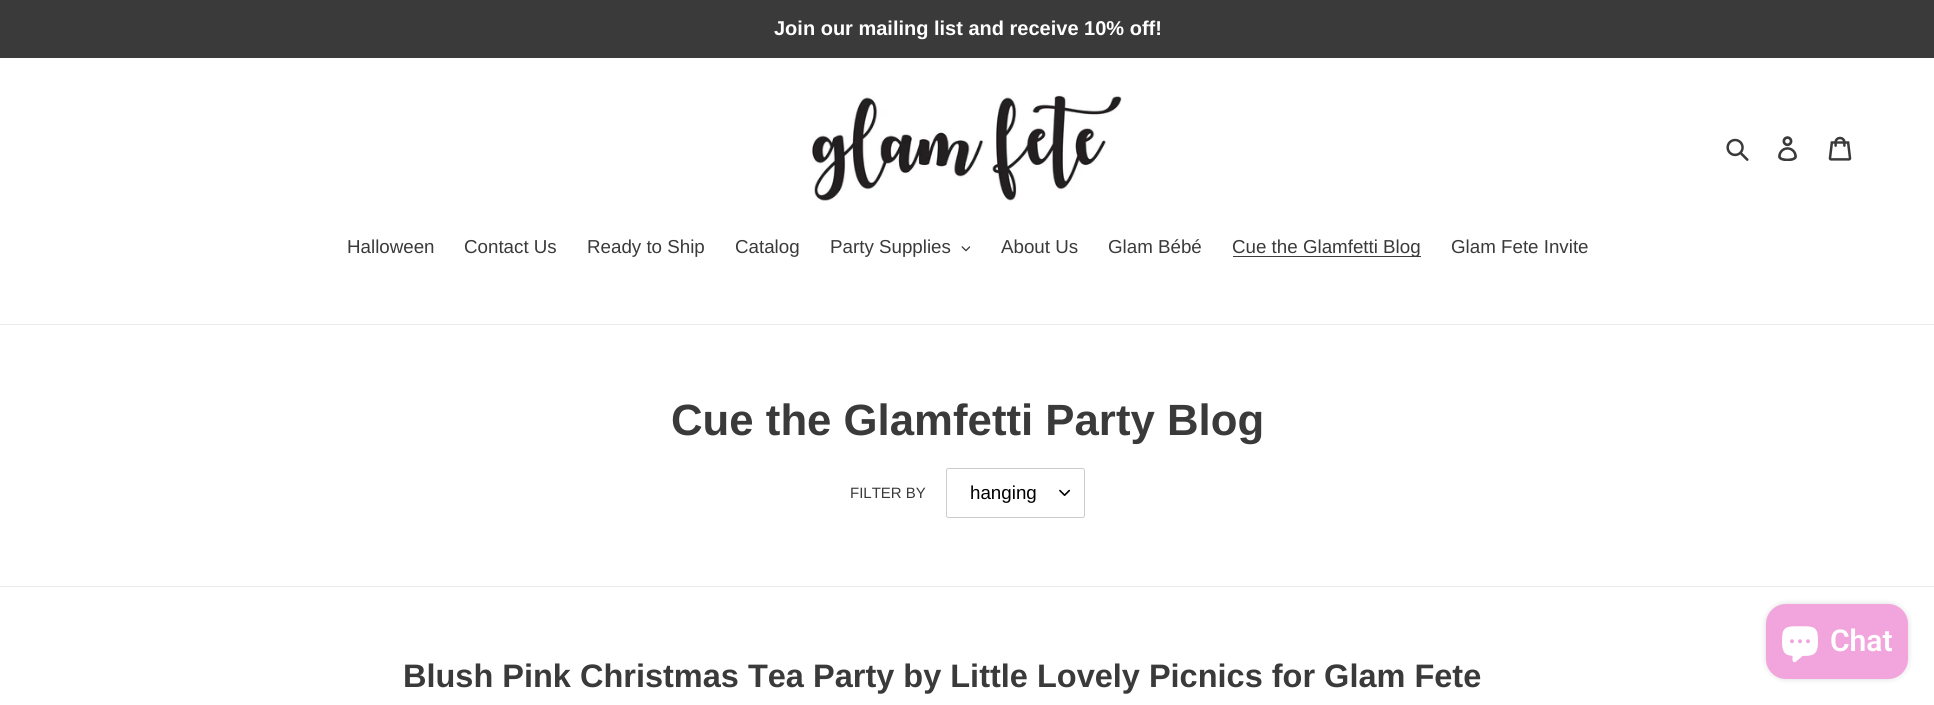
import math
import cairo

surface = cairo.ImageSurface(cairo.FORMAT_RGB24, 1934, 705)
ctx = cairo.Context(surface)
options = cairo.FontOptions()
options.set_hint_metrics(cairo.HINT_METRICS_OFF)
options.set_hint_style(cairo.HINT_STYLE_NONE)
ctx.set_font_options(options)
ctx.set_miter_limit(4)


def set_color(code):
    ctx.set_source_rgb(*(v / 255 for v in bytes.fromhex(code[-6:])))


def draw_text(x, y, s, family, size, color, bold=False, italic=False):
    ctx.select_font_face(family, cairo.FONT_SLANT_ITALIC if italic else cairo.FONT_SLANT_NORMAL, cairo.FONT_WEIGHT_BOLD if bold else cairo.FONT_WEIGHT_NORMAL)
    ctx.set_font_size(size)
    set_color(color)
    ctx.move_to(x, y)
    ctx.show_text(s)


def fill_rect(x, y, w, h, color):
    set_color(color)
    ctx.rectangle(x, y, w, h)
    ctx.fill()


def rounded_rect(x, y, w, h, r):
    ctx.new_sub_path()
    for i, (u, v) in enumerate([(x + w - r, y + h - r), (x + r, y + h - r), (x + r, y + r), (x + w - r, y + r)]):
        ctx.arc(u, v, r, i * math.pi / 2, (i + 1) * math.pi / 2)
    ctx.close_path()


def draw_shadow(x, y, w, h, r, blur, alpha):
    ctx.push_group_with_content(cairo.CONTENT_ALPHA)
    ctx.set_operator(cairo.OPERATOR_SOURCE)
    for i in range(15, -16, -2):
        e = blur * i / 6
        if min(w, h) + 2 * e > 0:
            ctx.set_source_rgba(0, 0, 0, alpha * math.erfc((i - 1) / 8.5) / 2)
            rounded_rect(x - e, y - e, w + 2 * e, h + 2 * e, max(0, min(r + e + blur * .6, min(w, h) / 2 + e)))
            ctx.fill()
    ctx.mask(ctx.pop_group())


def draw_image(path, x, y, w, h):
    ctx.save()
    ctx.set_source_surface(cairo.ImageSurface.create_from_png(path), x, y)
    ctx.rectangle(x, y, w, h)
    ctx.fill()
    ctx.restore()


set_color("#ffffff")
ctx.paint()
fill_rect(0, 0, 1934, 58, "#3a3a3a")
draw_text(774, 35, "Join our mailing list and receive 10% off!", "Liberation Sans", 20, "#ffffff", bold=True)
draw_image("assets/img1.png", 812, 95, 310, 106)
draw_image("assets/img2.png", 1726, 138, 23, 23)
draw_image("assets/img3.png", 1778, 136, 19, 25)
draw_image("assets/img4.png", 1828, 136, 24, 25)
fill_rect(0, 324, 1934, 1, "#ebebeb")
draw_text(347, 253, "Halloween", "Liberation Sans", 18.75, "#3a3a3a")
draw_text(464, 253, "Contact Us", "Liberation Sans", 18.75, "#3a3a3a")
draw_text(587, 253, "Ready to Ship", "Liberation Sans", 18.75, "#3a3a3a")
draw_text(735, 253, "Catalog", "Liberation Sans", 18.75, "#3a3a3a")
draw_text(830, 253, "Party Supplies", "Liberation Sans", 18.75, "#3a3a3a")
draw_image("assets/img5.png", 961, 246, 9, 6)
draw_text(1001, 253, "About Us", "Liberation Sans", 18.75, "#3a3a3a")
draw_text(1108, 253, "Glam Bébé", "Liberation Sans", 18.75, "#3a3a3a")
fill_rect(1233, 256, 188, 1, "#3a3a3a")
draw_text(1232, 253, "Cue the Glamfetti Blog", "Liberation Sans", 18.75, "#3a3a3a")
draw_text(1451, 253, "Glam Fete Invite", "Liberation Sans", 18.75, "#3a3a3a")
draw_text(671, 435, "Cue the Glamfetti Party Blog", "Liberation Sans", 43.75, "#3a3a3a", bold=True)
draw_text(850, 498, "FILTER BY", "Liberation Sans", 15, "#3a3a3a")
draw_image("assets/img6.png", 1059, 489, 12, 7)
rounded_rect(946.5, 468.5, 138, 49, 2)
set_color("#cccccc")
ctx.set_line_width(1)
ctx.stroke()
draw_text(970, 499, "hanging", "Liberation Sans", 18.75, "#000000")
fill_rect(0, 586, 1934, 1, "#ebebeb")
draw_text(403, 687, "Blush Pink Christmas Tea Party by Little Lovely Picnics for Glam Fete", "Liberation Sans", 32.5, "#3a3a3a", bold=True)
set_color("#000000")
draw_shadow(1766, 604, 142, 75, 20, 3, 0.15)
set_color("#f2a5dc")
rounded_rect(1766, 604, 142, 75, 20)
ctx.fill()
draw_image("assets/img7.png", 1782, 626, 36, 37)
draw_text(1830, 651, "Chat", "Roboto SemiBold", 30, "#ffffff")
surface.write_to_png("output.png")
